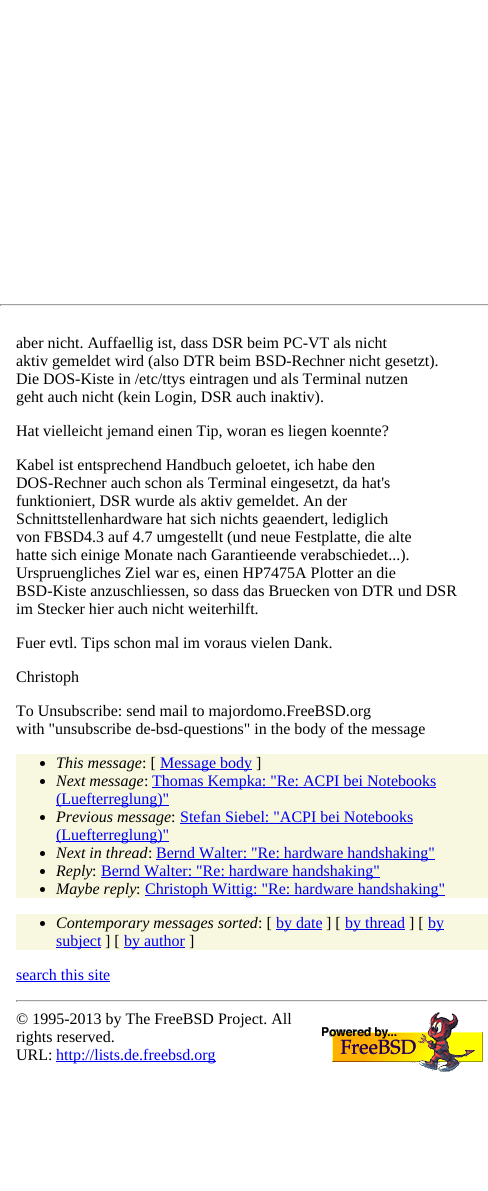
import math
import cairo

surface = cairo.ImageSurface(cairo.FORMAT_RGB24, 488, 1191)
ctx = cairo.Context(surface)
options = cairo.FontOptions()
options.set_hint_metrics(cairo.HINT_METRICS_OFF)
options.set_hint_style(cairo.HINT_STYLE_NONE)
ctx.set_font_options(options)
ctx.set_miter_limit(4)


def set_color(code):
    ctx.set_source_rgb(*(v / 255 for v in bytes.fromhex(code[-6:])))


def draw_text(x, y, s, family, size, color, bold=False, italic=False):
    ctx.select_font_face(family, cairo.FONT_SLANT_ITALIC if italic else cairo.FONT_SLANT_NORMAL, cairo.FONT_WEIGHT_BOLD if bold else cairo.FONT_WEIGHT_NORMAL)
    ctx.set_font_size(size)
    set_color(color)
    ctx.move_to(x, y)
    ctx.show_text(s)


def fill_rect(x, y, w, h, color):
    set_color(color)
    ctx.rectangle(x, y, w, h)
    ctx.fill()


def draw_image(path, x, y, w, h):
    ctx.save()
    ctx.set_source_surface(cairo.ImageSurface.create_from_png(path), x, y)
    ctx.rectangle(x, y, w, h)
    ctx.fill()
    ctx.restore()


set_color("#ffffff")
ctx.paint()
fill_rect(0, 304, 488, 1, "#9f9f9f")
fill_rect(0, 305, 488, 1, "#eeeeee")
fill_rect(0, 304, 1, 2, "#9f9f9f")
draw_text(16, 348, "aber nicht. Auffaellig ist, dass DSR beim PC-VT als nicht", "Liberation Serif", 16, "#000000")
draw_text(16, 366, "aktiv gemeldet wird (also DTR beim BSD-Rechner nicht gesetzt).", "Liberation Serif", 16, "#000000")
draw_text(16, 384, "Die DOS-Kiste in /etc/ttys eintragen und als Terminal nutzen", "Liberation Serif", 16, "#000000")
draw_text(16, 402, "geht auch nicht (kein Login, DSR auch inaktiv).", "Liberation Serif", 16, "#000000")
draw_text(16, 436, "Hat vielleicht jemand einen Tip, woran es liegen koennte?", "Liberation Serif", 16, "#000000")
draw_text(16, 470, "Kabel ist entsprechend Handbuch geloetet, ich habe den", "Liberation Serif", 16, "#000000")
draw_text(16, 488, "DOS-Rechner auch schon als Terminal eingesetzt, da hat's", "Liberation Serif", 16, "#000000")
draw_text(16, 506, "funktioniert, DSR wurde als aktiv gemeldet. An der", "Liberation Serif", 16, "#000000")
draw_text(16, 524, "Schnittstellenhardware hat sich nichts geaendert, lediglich", "Liberation Serif", 16, "#000000")
draw_text(16, 542, "von FBSD4.3 auf 4.7 umgestellt (und neue Festplatte, die alte", "Liberation Serif", 16, "#000000")
draw_text(16, 560, "hatte sich einige Monate nach Garantieende verabschiedet...).", "Liberation Serif", 16, "#000000")
draw_text(16, 578, "Urspruengliches Ziel war es, einen HP7475A Plotter an die", "Liberation Serif", 16, "#000000")
draw_text(16, 596, "BSD-Kiste anzuschliessen, so dass das Bruecken von DTR und DSR", "Liberation Serif", 16, "#000000")
draw_text(16, 614, "im Stecker hier auch nicht weiterhilft.", "Liberation Serif", 16, "#000000")
draw_text(16, 648, "Fuer evtl. Tips schon mal im voraus vielen Dank.", "Liberation Serif", 16, "#000000")
draw_text(16, 682, "Christoph", "Liberation Serif", 16, "#000000")
draw_text(16, 716, "To Unsubscribe: send mail to majordomo.FreeBSD.org", "Liberation Serif", 16, "#000000")
draw_text(16, 734, "with \"unsubscribe de-bsd-questions\" in the body of the message", "Liberation Serif", 16, "#000000")
fill_rect(16, 754, 472, 144, "#f8f8e0")
set_color("#000000")
ctx.new_path()
ctx.arc(42.5, 763.5, 2.5, 0, 2 * math.pi)
ctx.fill()
draw_text(56, 768, "This message", "Liberation Serif", 16, "#000000", italic=True)
draw_text(142, 768, ": [", "Liberation Serif", 16, "#000000")
fill_rect(160, 769, 92, 1, "#0000ee")
draw_text(160, 768, "Message body", "Liberation Serif", 16, "#0000ee")
draw_text(256, 768, "]", "Liberation Serif", 16, "#000000")
ctx.new_path()
ctx.arc(42.5, 781.5, 2.5, 0, 2 * math.pi)
ctx.fill()
draw_text(56, 786, "Next message", "Liberation Serif", 16, "#000000", italic=True)
draw_text(144, 786, ":", "Liberation Serif", 16, "#000000")
fill_rect(152, 787, 284, 1, "#0000ee")
draw_text(152, 786, "Thomas Kempka: \"Re: ACPI bei Notebooks", "Liberation Serif", 16, "#0000ee")
fill_rect(56, 805, 113, 1, "#0000ee")
draw_text(56, 804, "(Luefterreglung)\"", "Liberation Serif", 16, "#0000ee")
set_color("#000000")
ctx.new_path()
ctx.arc(42.5, 817.5, 2.5, 0, 2 * math.pi)
ctx.fill()
draw_text(56, 822, "Previous message", "Liberation Serif", 16, "#000000", italic=True)
draw_text(171, 822, ":", "Liberation Serif", 16, "#000000")
draw_text(180, 822, "Stefan Siebel: \"ACPI bei Notebooks", "Liberation Serif", 16, "#0000ee")
fill_rect(180, 823, 233, 1, "#0000ee")
fill_rect(56, 841, 113, 1, "#0000ee")
draw_text(56, 840, "(Luefterreglung)\"", "Liberation Serif", 16, "#0000ee")
set_color("#000000")
ctx.new_path()
ctx.arc(42.5, 853.5, 2.5, 0, 2 * math.pi)
ctx.fill()
draw_text(56, 858, "Next in thread", "Liberation Serif", 16, "#000000", italic=True)
draw_text(148, 858, ":", "Liberation Serif", 16, "#000000")
fill_rect(156, 859, 279, 1, "#0000ee")
draw_text(156, 858, "Bernd Walter: \"Re: hardware handshaking\"", "Liberation Serif", 16, "#0000ee")
set_color("#000000")
ctx.new_path()
ctx.arc(42.5, 871.5, 2.5, 0, 2 * math.pi)
ctx.fill()
draw_text(56, 876, "Reply", "Liberation Serif", 16, "#000000", italic=True)
draw_text(92, 876, ":", "Liberation Serif", 16, "#000000")
fill_rect(101, 877, 279, 1, "#0000ee")
draw_text(101, 876, "Bernd Walter: \"Re: hardware handshaking\"", "Liberation Serif", 16, "#0000ee")
set_color("#000000")
ctx.new_path()
ctx.arc(42.5, 889.5, 2.5, 0, 2 * math.pi)
ctx.fill()
draw_text(56, 894, "Maybe reply", "Liberation Serif", 16, "#000000", italic=True)
draw_text(136, 894, ":", "Liberation Serif", 16, "#000000")
fill_rect(145, 895, 300, 1, "#0000ee")
draw_text(145, 894, "Christoph Wittig: \"Re: hardware handshaking\"", "Liberation Serif", 16, "#0000ee")
fill_rect(16, 914, 472, 36, "#f8f8e0")
set_color("#000000")
ctx.new_path()
ctx.arc(42.5, 923.5, 2.5, 0, 2 * math.pi)
ctx.fill()
draw_text(56, 928, "Contemporary messages sorted", "Liberation Serif", 16, "#000000", italic=True)
draw_text(258, 928, ": [", "Liberation Serif", 16, "#000000")
fill_rect(276, 929, 46, 1, "#0000ee")
draw_text(276, 928, "by date", "Liberation Serif", 16, "#0000ee")
draw_text(326, 928, "] [", "Liberation Serif", 16, "#000000")
fill_rect(345, 929, 60, 1, "#0000ee")
draw_text(345, 928, "by thread", "Liberation Serif", 16, "#0000ee")
draw_text(409, 928, "] [", "Liberation Serif", 16, "#000000")
fill_rect(428, 929, 16, 1, "#0000ee")
draw_text(428, 928, "by", "Liberation Serif", 16, "#0000ee")
fill_rect(56, 947, 45, 1, "#0000ee")
draw_text(56, 946, "subject", "Liberation Serif", 16, "#0000ee")
draw_text(105, 946, "] [", "Liberation Serif", 16, "#000000")
fill_rect(124, 947, 61, 1, "#0000ee")
draw_text(124, 946, "by author", "Liberation Serif", 16, "#0000ee")
draw_text(189, 946, "]", "Liberation Serif", 16, "#000000")
draw_text(16, 980, "search this site", "Liberation Serif", 16, "#0000ee")
fill_rect(16, 981, 94, 1, "#0000ee")
fill_rect(16, 1000, 472, 1, "#9f9f9f")
fill_rect(487, 1000, 1, 2, "#eeeeee")
fill_rect(16, 1001, 472, 1, "#eeeeee")
fill_rect(16, 1000, 1, 2, "#9f9f9f")
draw_text(16, 1024, "© 1995-2013 by The FreeBSD Project. All", "Liberation Serif", 16, "#000000")
draw_image("assets/img1.png", 322, 1012, 161, 60)
draw_text(16, 1042, "rights reserved.", "Liberation Serif", 16, "#000000")
draw_text(16, 1060, "URL:", "Liberation Serif", 16, "#000000")
fill_rect(56, 1061, 160, 1, "#0000ee")
draw_text(56, 1060, "http://lists.de.freebsd.org", "Liberation Serif", 16, "#0000ee")
surface.write_to_png("output.png")
